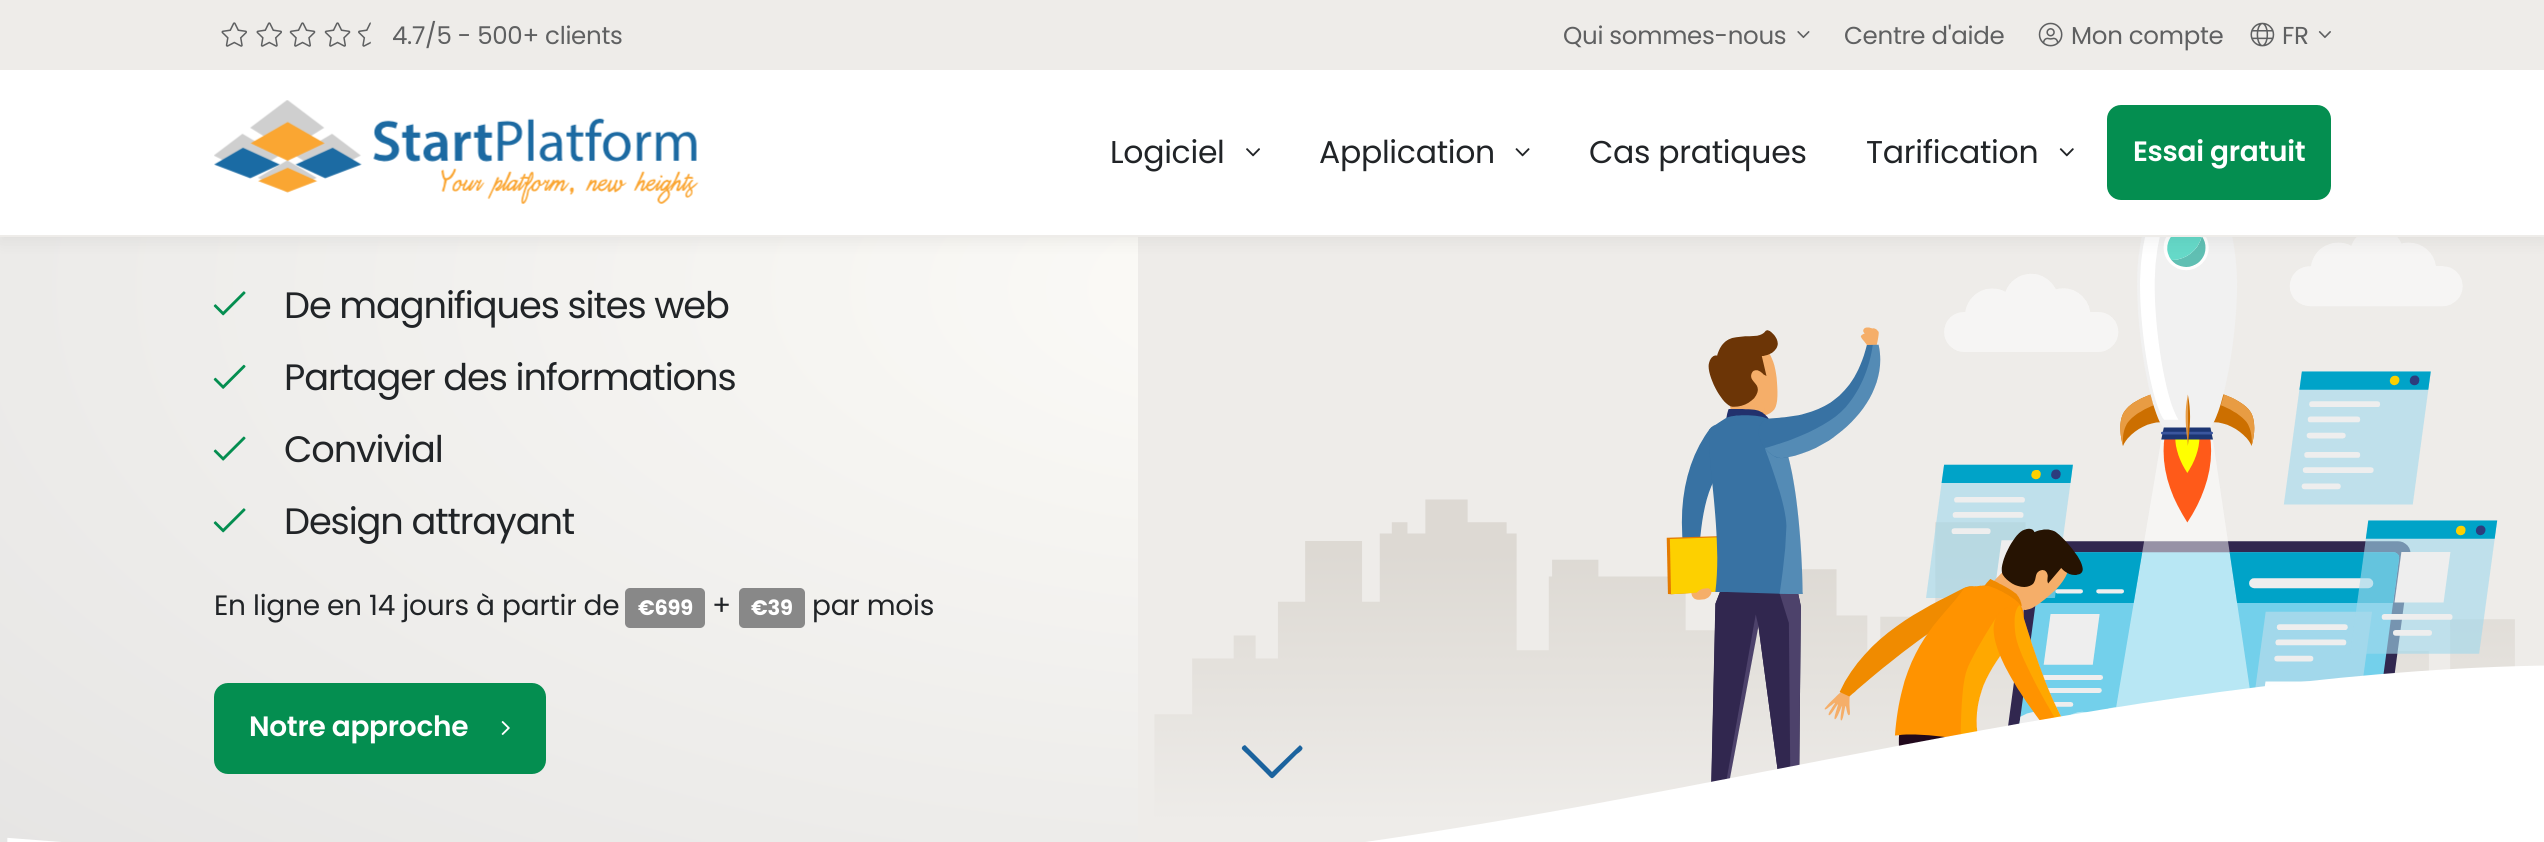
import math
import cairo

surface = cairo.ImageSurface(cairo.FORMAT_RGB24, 2544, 842)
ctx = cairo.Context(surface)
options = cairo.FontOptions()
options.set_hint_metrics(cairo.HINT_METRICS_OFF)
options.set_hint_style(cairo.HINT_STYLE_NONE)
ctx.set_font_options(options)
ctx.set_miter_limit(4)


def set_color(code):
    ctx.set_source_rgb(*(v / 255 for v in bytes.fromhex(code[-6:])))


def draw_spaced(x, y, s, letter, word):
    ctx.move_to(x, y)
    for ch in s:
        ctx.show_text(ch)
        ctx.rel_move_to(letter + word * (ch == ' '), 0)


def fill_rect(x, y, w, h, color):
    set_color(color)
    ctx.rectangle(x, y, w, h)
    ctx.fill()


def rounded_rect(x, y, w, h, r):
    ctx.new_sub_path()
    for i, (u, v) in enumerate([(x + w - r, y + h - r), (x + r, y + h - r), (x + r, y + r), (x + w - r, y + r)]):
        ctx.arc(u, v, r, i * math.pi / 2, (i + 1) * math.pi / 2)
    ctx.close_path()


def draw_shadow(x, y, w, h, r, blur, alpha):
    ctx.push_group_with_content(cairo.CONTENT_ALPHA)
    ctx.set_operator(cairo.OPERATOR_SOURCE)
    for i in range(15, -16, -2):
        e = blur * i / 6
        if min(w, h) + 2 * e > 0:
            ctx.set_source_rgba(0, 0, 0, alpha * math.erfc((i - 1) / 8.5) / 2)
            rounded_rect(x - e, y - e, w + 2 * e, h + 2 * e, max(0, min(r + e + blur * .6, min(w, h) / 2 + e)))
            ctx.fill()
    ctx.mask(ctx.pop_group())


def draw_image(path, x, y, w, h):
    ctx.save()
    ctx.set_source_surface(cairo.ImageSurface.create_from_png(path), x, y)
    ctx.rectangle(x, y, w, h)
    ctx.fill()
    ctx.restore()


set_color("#ffffff")
ctx.paint()
gradient = cairo.RadialGradient(0, 0, 0, 0, 0, 1)
gradient.set_matrix(cairo.Matrix(1 / 1799, 0, 0, 1 / 866, -1 * 1272 / 1799, -1 * 287 / 866))
gradient.add_color_stop_rgba(0, 0.988, 0.984, 0.969, 1)
gradient.add_color_stop_rgba(1, 0.898, 0.894, 0.89, 1)
ctx.set_source(gradient)
ctx.rectangle(0, 237, 1138, 605)
ctx.fill()
draw_image("assets/img17.png", 1138, 237, 1406, 605)
set_color("#000000")
draw_shadow(0, 5, 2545, 237, 0, 8, 0.06)
fill_rect(0, 70, 2544, 165, "#ffffff")
fill_rect(0, 235, 2544, 2, "#eeece9")
fill_rect(0, 0, 2544, 70, "#eeece9")
draw_image("assets/img1.png", 221, 22, 26, 25)
draw_image("assets/img1.png", 256, 22, 26, 25)
draw_image("assets/img2.png", 289, 22, 27, 25)
draw_image("assets/img2.png", 324, 22, 27, 25)
draw_image("assets/img3.png", 358, 22, 13, 25)
ctx.select_font_face("Poppins")
ctx.set_font_size(24.5)
set_color("#5f6061")
draw_spaced(392, 44, "4.7/5 - 500+ clients", -0.3, 0)
draw_spaced(1563, 44, "Qui sommes-nous", -0.3, 0)
draw_image("assets/img4.png", 1797, 31, 13, 8)
draw_spaced(1844, 44, "Centre d'aide", -0.3, 0)
draw_image("assets/img5.png", 2038, 22, 25, 25)
draw_spaced(2071, 44, "Mon compte", -0.3, 0)
draw_image("assets/img6.png", 2250, 22, 25, 25)
draw_spaced(2282, 44, "FR", -0.3, 0)
draw_image("assets/img7.png", 2318, 31, 13, 8)
draw_image("assets/img8.png", 214, 100, 485, 104)
ctx.set_font_size(31.5)
set_color("#212427")
draw_spaced(1110, 163, "Logiciel", -0.3, 0)
draw_image("assets/img9.png", 1246, 148, 14, 9)
draw_spaced(1319, 163, "Application", -0.3, 0)
draw_image("assets/img10.png", 1515, 148, 15, 9)
draw_spaced(1589, 163, "Cas pratiques", -0.3, 0)
draw_spaced(1866, 163, "Tarification", -0.3, 0)
draw_image("assets/img11.png", 2059, 148, 15, 9)
set_color("#048e50")
rounded_rect(2107, 105, 224, 95, 14)
ctx.fill()
ctx.select_font_face("Poppins SemiBold")
ctx.set_font_size(28)
set_color("#ffffff")
draw_spaced(2133, 161, "Essai gratuit", -0.3, 0)
draw_image("assets/img12.png", 213, 291, 33, 25)
ctx.select_font_face("Poppins")
ctx.set_font_size(36.75)
set_color("#212427")
draw_spaced(284, 318, "De magnifiques sites web", -1.1, 0)
draw_image("assets/img13.png", 213, 364, 33, 25)
draw_spaced(284, 390, "Partager des informations", -1.1, 0)
draw_image("assets/img14.png", 213, 436, 33, 25)
draw_spaced(284, 462, "Convivial", -1.1, 0)
draw_image("assets/img15.png", 213, 508, 33, 25)
draw_spaced(284, 534, "Design attrayant", -1.1, 0)
ctx.set_font_size(28)
draw_spaced(214, 615, "En ligne en 14 jours à partir de", -0.25, 0)
set_color("#888888")
rounded_rect(625, 588, 80, 40, 5)
ctx.fill()
ctx.select_font_face("Poppins", cairo.FONT_SLANT_NORMAL, cairo.FONT_WEIGHT_BOLD)
ctx.set_font_size(21)
set_color("#ffffff")
draw_spaced(638, 615, "€699", -0.25, 0)
ctx.select_font_face("Poppins")
ctx.set_font_size(28)
set_color("#212427")
draw_spaced(712, 615, "+", -0.25, 0)
set_color("#888888")
rounded_rect(739, 588, 66, 40, 5)
ctx.fill()
ctx.select_font_face("Poppins", cairo.FONT_SLANT_NORMAL, cairo.FONT_WEIGHT_BOLD)
ctx.set_font_size(21)
set_color("#ffffff")
draw_spaced(751, 615, "€39", -0.25, 0)
ctx.select_font_face("Poppins")
ctx.set_font_size(28)
set_color("#212427")
draw_spaced(812, 615, "par mois", -0.25, 0)
draw_image("assets/img18.png", 7, 665, 2537, 177)
set_color("#048e50")
rounded_rect(214, 683, 332, 91, 14)
ctx.fill()
ctx.select_font_face("Poppins SemiBold")
set_color("#ffffff")
draw_spaced(249, 736, "Notre approche", -0.3, 0)
draw_image("assets/img16.png", 501, 721, 9, 14)
set_color("#1b639e")
ctx.new_path()
ctx.move_to(1302, 747)
ctx.curve_to(1304, 749, 1300, 752, 1297, 754)
ctx.line_to(1278, 773)
ctx.curve_to(1271, 780, 1273, 780, 1266, 773)
ctx.line_to(1247, 754)
ctx.curve_to(1243, 750, 1240, 749, 1243, 746)
ctx.line_to(1245, 745)
ctx.line_to(1272, 772)
ctx.line_to(1299, 746)
ctx.curve_to(1300, 745, 1300, 745, 1301, 746)
ctx.close_path()
ctx.fill()
surface.write_to_png("output.png")
